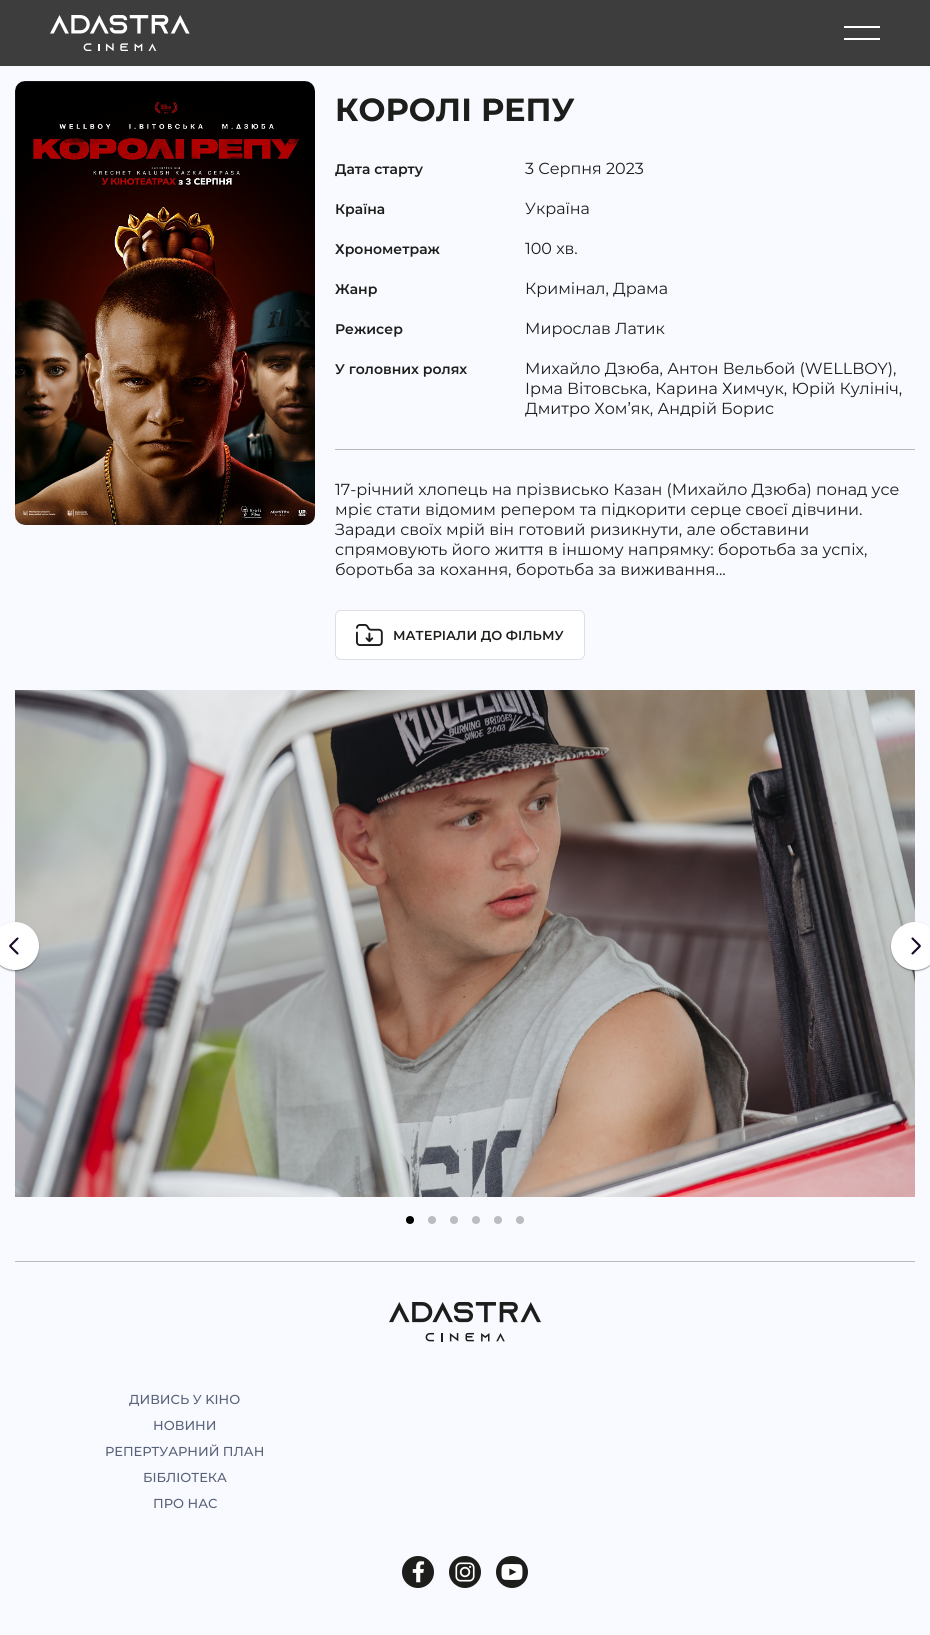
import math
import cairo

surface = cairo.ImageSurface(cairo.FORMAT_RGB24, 930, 1635)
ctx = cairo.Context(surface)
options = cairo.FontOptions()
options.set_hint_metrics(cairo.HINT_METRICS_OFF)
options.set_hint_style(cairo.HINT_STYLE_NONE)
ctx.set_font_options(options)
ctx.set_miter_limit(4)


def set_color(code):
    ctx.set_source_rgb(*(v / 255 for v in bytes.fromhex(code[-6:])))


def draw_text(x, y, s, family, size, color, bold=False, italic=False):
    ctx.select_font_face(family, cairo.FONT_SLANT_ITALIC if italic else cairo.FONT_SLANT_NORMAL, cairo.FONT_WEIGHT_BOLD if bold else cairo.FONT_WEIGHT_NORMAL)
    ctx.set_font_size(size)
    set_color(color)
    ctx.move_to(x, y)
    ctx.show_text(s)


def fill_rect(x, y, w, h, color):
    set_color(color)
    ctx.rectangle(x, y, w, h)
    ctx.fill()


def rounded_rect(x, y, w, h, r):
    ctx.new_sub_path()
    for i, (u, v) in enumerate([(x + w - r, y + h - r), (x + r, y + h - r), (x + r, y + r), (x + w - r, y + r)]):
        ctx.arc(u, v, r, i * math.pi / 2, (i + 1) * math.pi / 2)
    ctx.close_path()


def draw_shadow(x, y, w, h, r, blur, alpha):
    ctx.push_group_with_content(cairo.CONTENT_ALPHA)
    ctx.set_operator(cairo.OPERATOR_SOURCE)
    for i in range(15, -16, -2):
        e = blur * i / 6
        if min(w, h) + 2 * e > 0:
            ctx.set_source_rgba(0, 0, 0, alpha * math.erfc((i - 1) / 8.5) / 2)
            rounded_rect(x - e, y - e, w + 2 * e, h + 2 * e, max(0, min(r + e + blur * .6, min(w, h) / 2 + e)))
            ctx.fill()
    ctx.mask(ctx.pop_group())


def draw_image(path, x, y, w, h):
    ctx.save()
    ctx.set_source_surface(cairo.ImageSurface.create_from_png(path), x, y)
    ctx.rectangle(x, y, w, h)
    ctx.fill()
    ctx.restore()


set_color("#f8faff")
ctx.paint()
fill_rect(0, 0, 930, 66, "#3e3d3e")
draw_image("assets/img1.png", 50, 15, 140, 36)
fill_rect(844, 26, 36, 2, "#ffffff")
fill_rect(844, 38, 36, 2, "#ffffff")
draw_image("assets/img2.png", 15, 81, 300, 444)
draw_text(335, 121, "КОРОЛІ РЕПУ", "Montserrat", 32, "#1d1d1b", bold=True)
draw_text(335, 174, "Дата старту", "Montserrat SemiBold", 14, "#1d1d1b")
draw_text(525, 174, "3 Серпня 2023", "Montserrat", 16, "#1d1d1b")
draw_text(335, 214, "Країна", "Montserrat SemiBold", 14, "#1d1d1b")
draw_text(525, 214, "Україна", "Montserrat", 16, "#1d1d1b")
draw_text(335, 254, "Хронометраж", "Montserrat SemiBold", 14, "#1d1d1b")
draw_text(525, 254, "100 хв.", "Montserrat", 16, "#1d1d1b")
draw_text(335, 294, "Жанр", "Montserrat SemiBold", 14, "#1d1d1b")
draw_text(525, 294, "Кримінал, Драма", "Montserrat", 16, "#1d1d1b")
draw_text(335, 334, "Режисер", "Montserrat SemiBold", 14, "#1d1d1b")
draw_text(525, 334, "Мирослав Латик", "Montserrat", 16, "#1d1d1b")
draw_text(335, 374, "У головних ролях", "Montserrat SemiBold", 14, "#1d1d1b")
draw_text(525, 374, "Михайло Дзюба, Антон Вельбой (WELLBOY),", "Montserrat", 16, "#1d1d1b")
draw_text(525, 394, "Ірма Вітовська, Карина Химчук, Юрій Кулініч,", "Montserrat", 16, "#1d1d1b")
draw_text(525, 414, "Дмитро Хом’як, Андрій Борис", "Montserrat", 16, "#1d1d1b")
fill_rect(335, 449, 580, 1, "#b6bbc0")
draw_text(335, 495, "17-річний хлопець на прізвисько Казан (Михайло Дзюба) понад усе", "Montserrat", 16, "#1d1d1b")
draw_text(335, 515, "мріє стати відомим репером та підкорити серце своєї дівчини.", "Montserrat", 16, "#1d1d1b")
draw_text(335, 535, "Заради своїх мрій він готовий ризикнути, але обставини", "Montserrat", 16, "#1d1d1b")
draw_text(335, 555, "спрямовують його життя в іншому напрямку: боротьба за успіх,", "Montserrat", 16, "#1d1d1b")
draw_text(335, 575, "боротьба за кохання, боротьба за виживання...", "Montserrat", 16, "#1d1d1b")
set_color("#ffffff")
rounded_rect(335.5, 610.5, 249, 49, 5.5)
ctx.fill_preserve()
set_color("#dedfe4")
ctx.set_line_width(1)
ctx.stroke()
draw_image("assets/img3.png", 356, 624, 27, 22)
draw_text(393, 640, "МАТЕРІАЛИ ДО ФІЛЬМУ", "Montserrat SemiBold", 13, "#1d1d1b")
draw_image("assets/img4.png", 15, 690, 900, 507)
set_color("#000000")
draw_shadow(-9, 923, 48, 48, 24, 1.5, 0.12)
draw_shadow(-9, 923, 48, 48, 24, 0.5, 0.14)
draw_shadow(-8, 925, 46, 46, 23, 0.5, 0.2)
set_color("#ffffff")
ctx.arc(15, 946, 24, 0, 2 * math.pi)
ctx.fill()
ctx.new_path()
ctx.move_to(17.5, 938.5)
ctx.line_to(10, 946)
ctx.line_to(17.5, 953.5)
set_color("#170724")
ctx.set_line_width(2.1)
ctx.set_line_cap(cairo.LINE_CAP_ROUND)
ctx.set_line_join(cairo.LINE_JOIN_BEVEL)
ctx.stroke()
set_color("#000000")
draw_shadow(891, 923, 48, 48, 24, 1.5, 0.12)
draw_shadow(891, 923, 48, 48, 24, 0.5, 0.14)
draw_shadow(892, 925, 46, 46, 23, 0.5, 0.2)
set_color("#ffffff")
ctx.arc(915, 946, 24, 0, 2 * math.pi)
ctx.fill()
ctx.new_path()
ctx.move_to(912.5, 938.5)
ctx.line_to(920, 946)
ctx.line_to(912.5, 953.5)
set_color("#170724")
ctx.stroke()
set_color("#000000")
ctx.arc(410, 1220, 4, 0, 2 * math.pi)
ctx.fill()
set_color("#babcbf")
ctx.arc(432, 1220, 4, 0, 2 * math.pi)
ctx.fill()
ctx.arc(454, 1220, 4, 0, 2 * math.pi)
ctx.fill()
ctx.arc(476, 1220, 4, 0, 2 * math.pi)
ctx.fill()
ctx.arc(498, 1220, 4, 0, 2 * math.pi)
ctx.fill()
ctx.arc(520, 1220, 4, 0, 2 * math.pi)
ctx.fill()
fill_rect(15, 1261, 900, 1, "#b6bbc0")
draw_image("assets/img5.png", 389, 1302, 152, 40)
draw_text(129, 1404, "ДИВИСЬ У KIНО", "Montserrat Medium", 13, "#596279")
draw_text(153, 1430, "НОВИНИ", "Montserrat Medium", 13, "#596279")
draw_text(105, 1456, "РЕПЕРTУАРНИЙ ПЛАН", "Montserrat Medium", 13, "#596279")
draw_text(143, 1482, "БIБЛIОТЕКА", "Montserrat Medium", 13, "#596279")
draw_text(153, 1508, "ПРО НАС", "Montserrat Medium", 13, "#596279")
set_color("#1d1d1b")
ctx.new_path()
ctx.arc(418, 1572, 16, 0, 2 * math.pi)
ctx.fill()
draw_image("assets/img6.png", 412, 1561, 13, 22)
ctx.arc(465, 1572, 16, 0, 2 * math.pi)
ctx.fill()
draw_image("assets/img7.png", 455, 1562, 20, 20)
ctx.arc(512, 1572, 16, 0, 2 * math.pi)
ctx.fill()
draw_image("assets/img8.png", 501, 1564, 22, 16)
surface.write_to_png("output.png")
